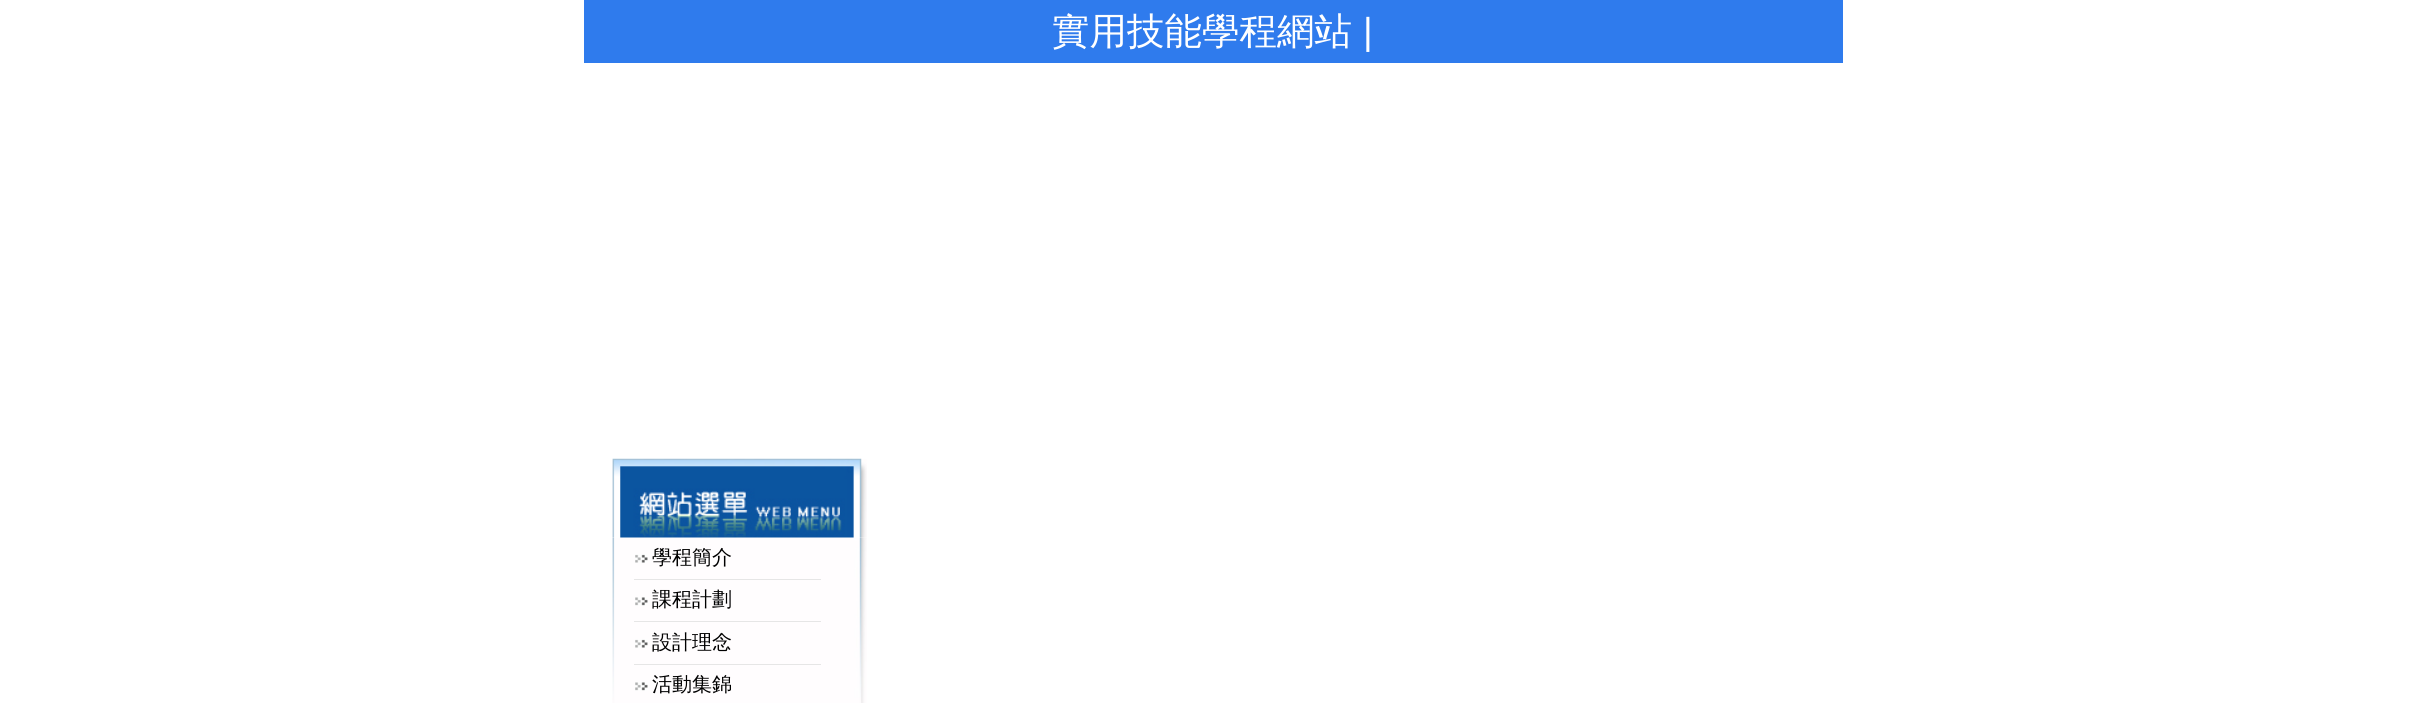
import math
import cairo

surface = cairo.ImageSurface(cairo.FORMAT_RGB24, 2425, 703)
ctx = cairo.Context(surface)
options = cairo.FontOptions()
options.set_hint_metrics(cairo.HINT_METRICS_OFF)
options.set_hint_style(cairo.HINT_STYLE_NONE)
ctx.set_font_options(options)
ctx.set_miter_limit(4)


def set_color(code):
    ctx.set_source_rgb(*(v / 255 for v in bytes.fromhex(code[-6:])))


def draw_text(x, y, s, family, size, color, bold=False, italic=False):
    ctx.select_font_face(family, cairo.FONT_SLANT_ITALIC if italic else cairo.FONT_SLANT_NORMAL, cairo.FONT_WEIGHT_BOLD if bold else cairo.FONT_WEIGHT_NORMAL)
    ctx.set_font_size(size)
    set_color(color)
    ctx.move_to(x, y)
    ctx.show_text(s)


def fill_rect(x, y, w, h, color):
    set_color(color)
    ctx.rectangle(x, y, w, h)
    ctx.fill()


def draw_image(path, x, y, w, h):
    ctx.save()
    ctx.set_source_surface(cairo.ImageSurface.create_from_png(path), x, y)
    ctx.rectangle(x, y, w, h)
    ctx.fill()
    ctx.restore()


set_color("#ffffff")
ctx.paint()
fill_rect(584, 0, 1259, 63, "#2f7bed")
draw_text(1052, 44, "實用技能學程網站", "WenQuanYi Zen Hei Medium", 37.5, "#ffffff")
draw_text(1363, 44, "|", "Liberation Sans", 37.5, "#ffffff")
draw_image("assets/img2.png", 612, 537, 255, 166)
draw_image("assets/img1.png", 612, 458, 255, 80)
fill_rect(634, 579, 187, 1, "#e6e6e6")
draw_image("assets/img3.png", 635, 554, 13, 9)
draw_text(652, 564, "學程簡介", "WenQuanYi Zen Hei Medium", 20, "#000000")
fill_rect(634, 621, 187, 1, "#e6e6e6")
draw_image("assets/img4.png", 635, 597, 13, 9)
draw_text(652, 606, "課程計劃", "WenQuanYi Zen Hei Medium", 20, "#000000")
fill_rect(634, 664, 187, 1, "#e6e6e6")
draw_image("assets/img3.png", 635, 639, 13, 9)
draw_text(652, 649, "設計理念", "WenQuanYi Zen Hei Medium", 20, "#000000")
draw_image("assets/img4.png", 635, 682, 13, 9)
draw_text(652, 691, "活動集錦", "WenQuanYi Zen Hei Medium", 20, "#000000")
surface.write_to_png("output.png")
